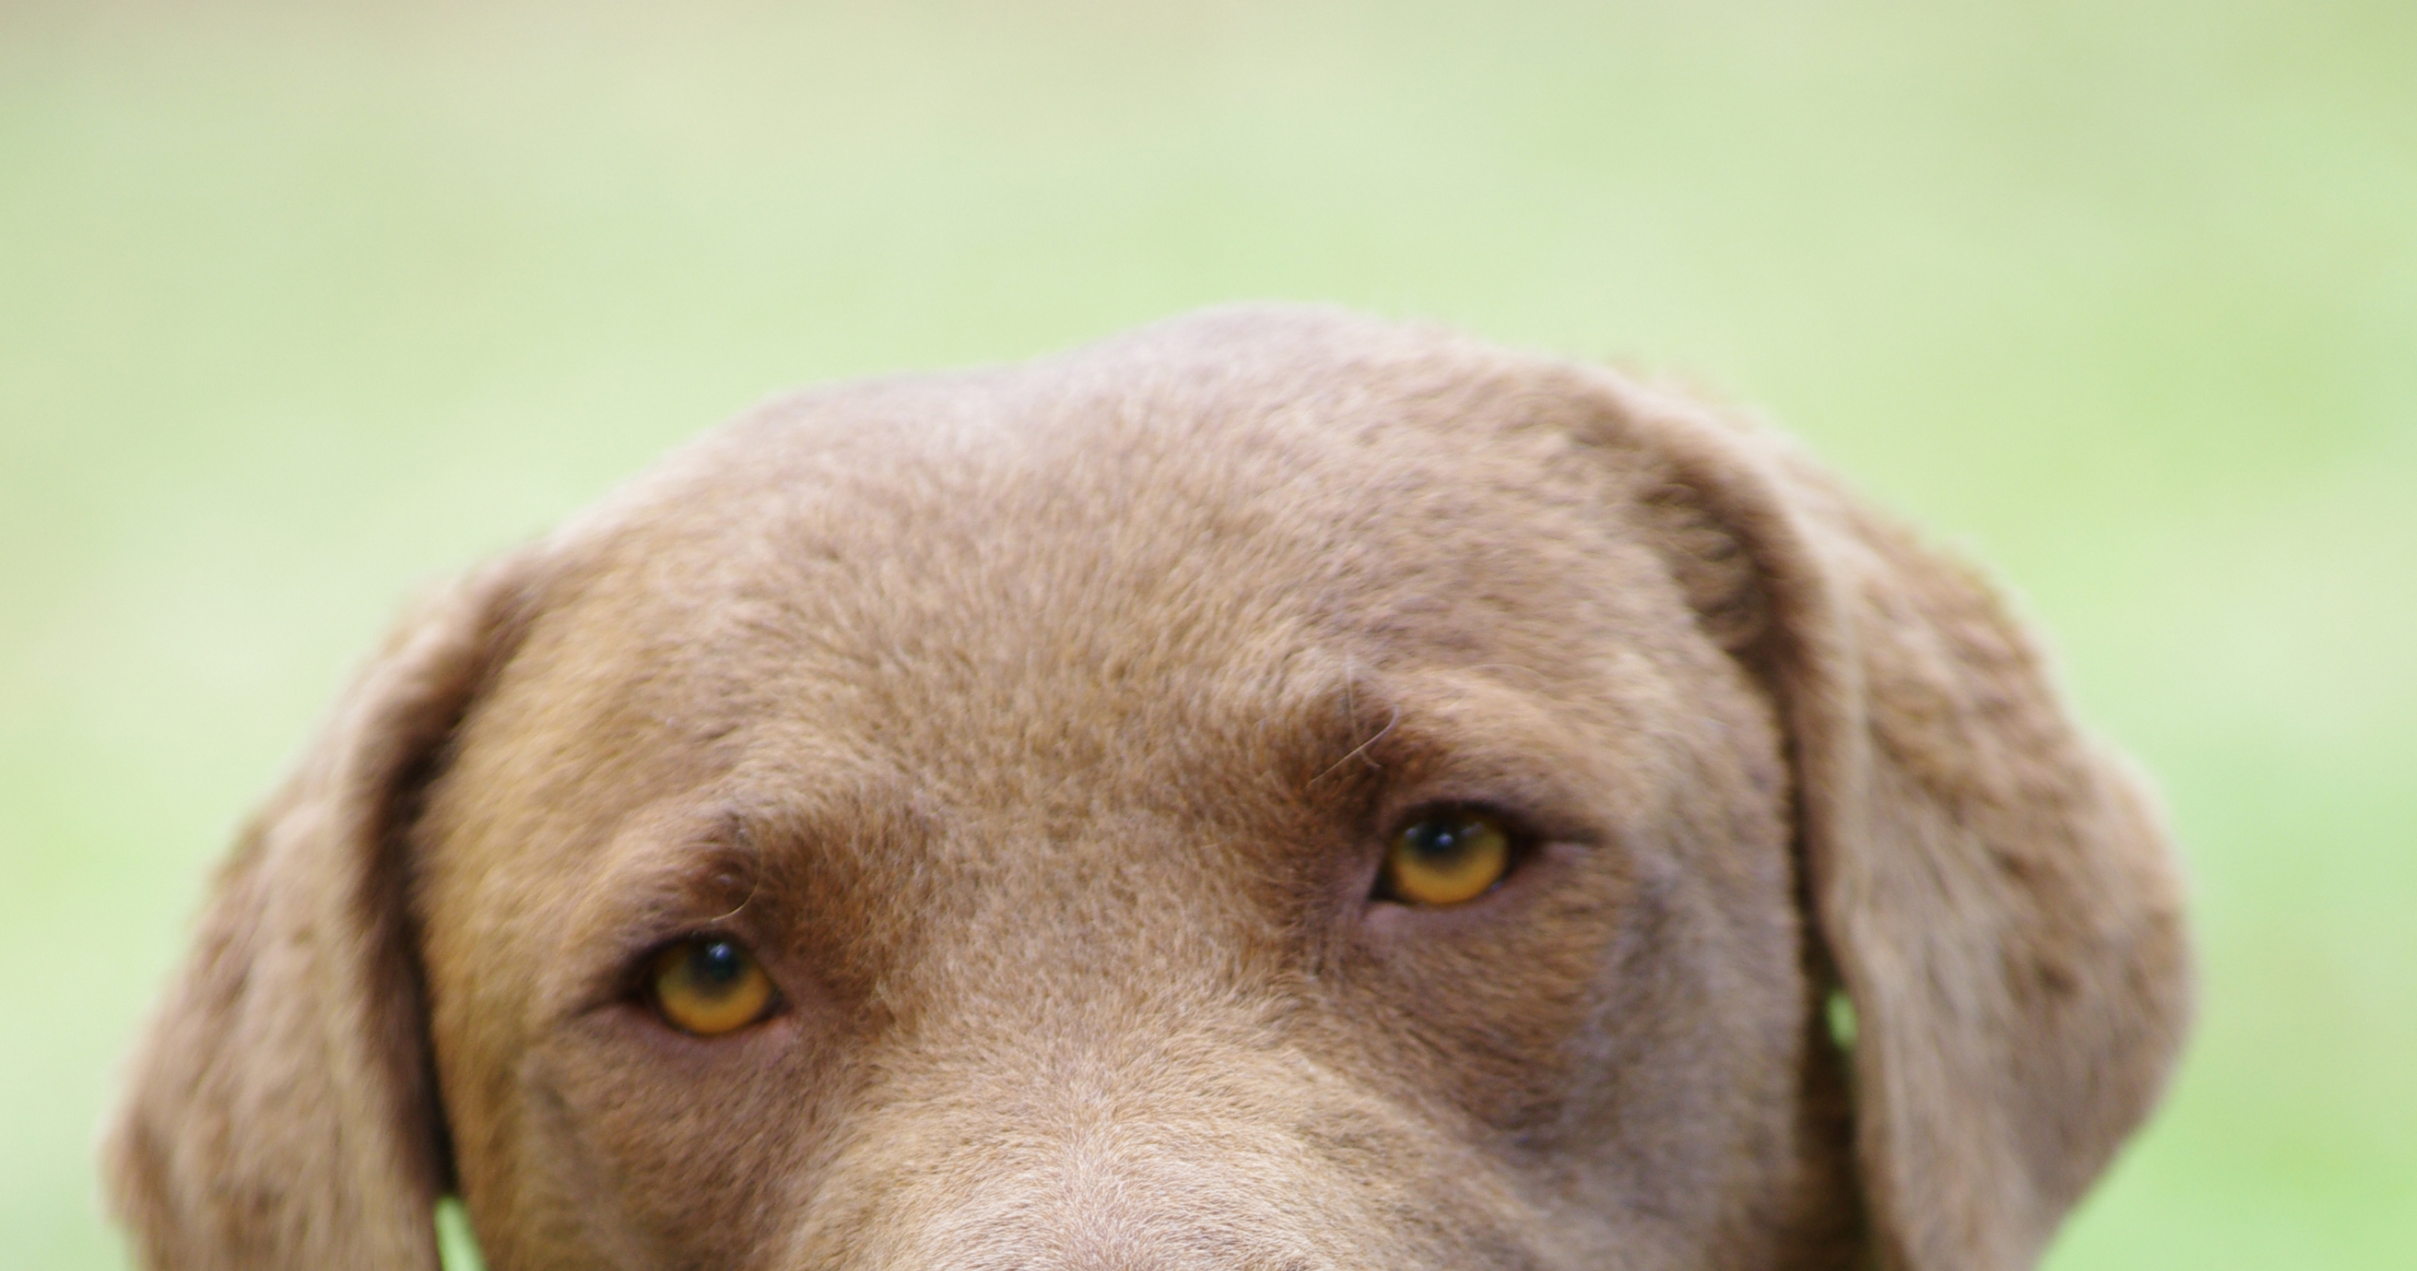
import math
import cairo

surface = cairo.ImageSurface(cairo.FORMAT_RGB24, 2417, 1271)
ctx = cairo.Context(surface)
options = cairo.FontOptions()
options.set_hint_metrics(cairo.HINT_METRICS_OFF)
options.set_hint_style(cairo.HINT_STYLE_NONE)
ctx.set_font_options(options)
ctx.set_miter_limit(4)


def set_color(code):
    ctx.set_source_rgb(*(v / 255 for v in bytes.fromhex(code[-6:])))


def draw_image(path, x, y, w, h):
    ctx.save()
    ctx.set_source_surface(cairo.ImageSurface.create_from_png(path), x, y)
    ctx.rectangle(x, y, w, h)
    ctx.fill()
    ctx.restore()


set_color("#ffffff")
ctx.paint()
draw_image("assets/img1.png", 0, 0, 2417, 1271)
surface.write_to_png("output.png")
